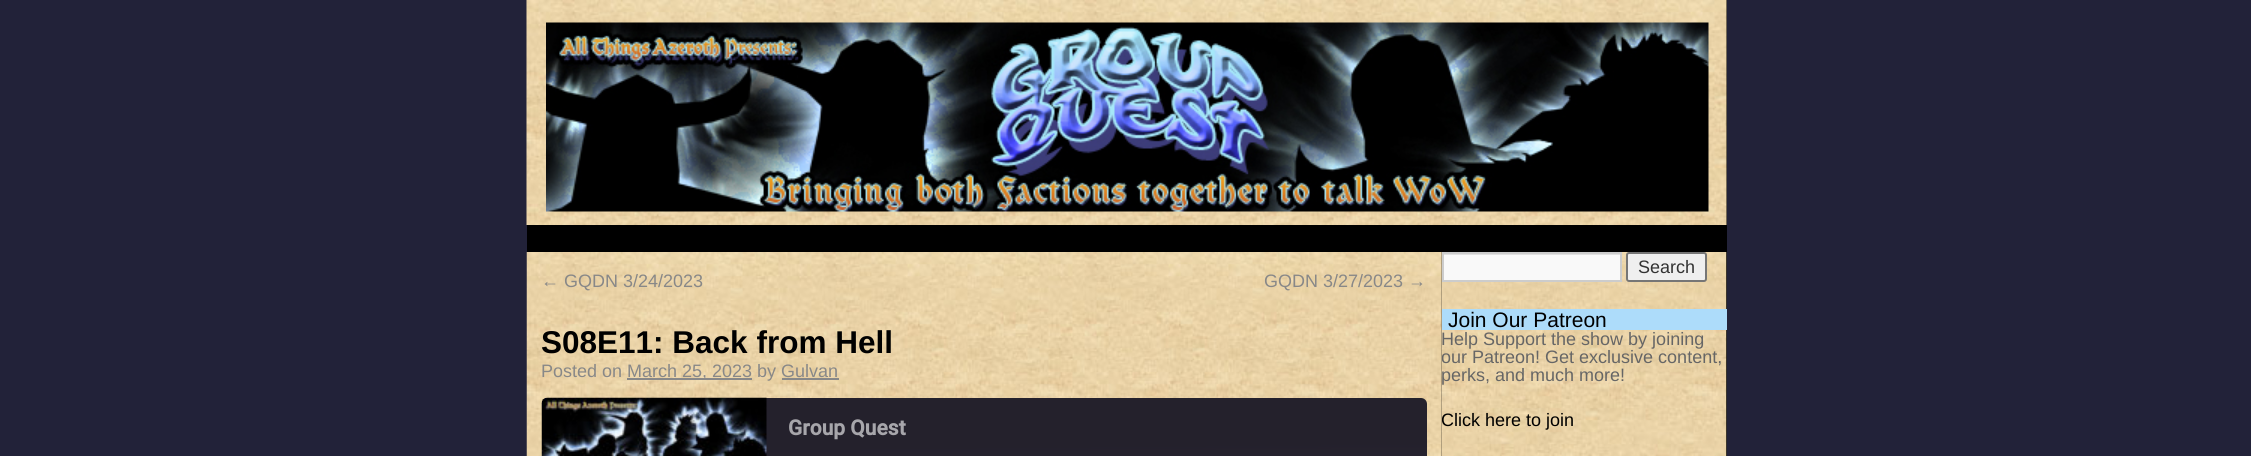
import math
import cairo

surface = cairo.ImageSurface(cairo.FORMAT_RGB24, 2251, 456)
ctx = cairo.Context(surface)
options = cairo.FontOptions()
options.set_hint_metrics(cairo.HINT_METRICS_OFF)
options.set_hint_style(cairo.HINT_STYLE_NONE)
ctx.set_font_options(options)
ctx.set_miter_limit(4)


def set_color(code):
    ctx.set_source_rgb(*(v / 255 for v in bytes.fromhex(code[-6:])))


def draw_text(x, y, s, family, size, color, bold=False, italic=False):
    ctx.select_font_face(family, cairo.FONT_SLANT_ITALIC if italic else cairo.FONT_SLANT_NORMAL, cairo.FONT_WEIGHT_BOLD if bold else cairo.FONT_WEIGHT_NORMAL)
    ctx.set_font_size(size)
    set_color(color)
    ctx.move_to(x, y)
    ctx.show_text(s)


def fill_rect(x, y, w, h, color):
    set_color(color)
    ctx.rectangle(x, y, w, h)
    ctx.fill()


def rounded_rect(x, y, w, h, r):
    ctx.new_sub_path()
    for i, (u, v) in enumerate([(x + w - r, y + h - r), (x + r, y + h - r), (x + r, y + r), (x + w - r, y + r)]):
        ctx.arc(u, v, r, i * math.pi / 2, (i + 1) * math.pi / 2)
    ctx.close_path()


def draw_image(path, x, y, w, h):
    ctx.save()
    ctx.set_source_surface(cairo.ImageSurface.create_from_png(path), x, y)
    ctx.rectangle(x, y, w, h)
    ctx.fill()
    ctx.restore()


set_color("#222239")
ctx.paint()
fill_rect(527, 0, 1200, 456, "#000000")
draw_image("assets/img1.png", 526, 0, 1201, 225)
draw_image("assets/img2.png", 546, 22, 1163, 190)
draw_image("assets/img3.png", 526, 252, 916, 204)
draw_text(541, 287, "← GQDN 3/24/2023", "Liberation Sans", 18, "#888888")
draw_text(1264, 287, "GQDN 3/27/2023 →", "Liberation Sans", 18, "#888888")
draw_text(541, 353, "S08E11: Back from Hell", "Liberation Sans", 31.5, "#000000", bold=True)
draw_text(541, 377, "Posted on", "Liberation Sans", 18, "#888888")
fill_rect(627, 378, 125, 2, "#888888")
draw_text(627, 377, "March 25, 2023 by Gulvan", "Liberation Sans", 18, "#888888")
fill_rect(782, 378, 57, 2, "#888888")
gradient = cairo.LinearGradient(985, 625, 983, 395)
gradient.add_color_stop_rgba(0.01, 0.22, 0.2, 0.267, 1)
gradient.add_color_stop_rgba(0.78, 0.141, 0.129, 0.173, 1)
ctx.set_source(gradient)
rounded_rect(542, 398, 885, 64, 6)
ctx.fill()
draw_image("assets/img4.png", 541, 397, 226, 59)
draw_text(788, 435, "Group Quest", "Roboto", 21, "#a7a6ab", bold=True)
draw_image("assets/img5.png", 1441, 252, 286, 204)
fill_rect(1444, 255, 176, 25, "#f9f9f9")
ctx.save()
ctx.rectangle(1443, 254, 177, 27)
ctx.clip()
set_color("#e0e0e0")
ctx.set_fill_rule(cairo.FILL_RULE_EVEN_ODD)
ctx.new_path()
ctx.move_to(1294, 105)
ctx.line_to(1768, 105)
ctx.line_to(1768, 429)
ctx.line_to(1294, 429)
ctx.close_path()
ctx.move_to(1444, 255)
ctx.line_to(1622, 255)
ctx.line_to(1622, 282)
ctx.line_to(1444, 282)
ctx.close_path()
ctx.fill()
ctx.restore()
ctx.rectangle(1443, 253, 178, 28)
set_color("#cccccc")
ctx.stroke()
set_color("#efefef")
rounded_rect(1627, 253, 79, 28, 2)
ctx.fill_preserve()
set_color("#767676")
ctx.stroke()
draw_text(1638, 273, "Search", "Liberation Sans", 18, "#333333")
fill_rect(1442, 309, 285, 21, "#addcfa")
draw_text(1448, 327, "Join Our Patreon", "Liberation Sans", 21, "#000000")
draw_text(1441, 345, "Help Support the show by joining", "Liberation Sans", 18, "#666666")
ctx.save()
ctx.rectangle(1442, 252, 285, 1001)
ctx.clip()
draw_text(1441, 363, "our Patreon! Get exclusive content,", "Liberation Sans", 18, "#666666")
ctx.restore()
draw_text(1441, 381, "perks, and much more!", "Liberation Sans", 18, "#666666")
ctx.save()
ctx.rectangle(1442, 252, 285, 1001)
ctx.clip()
draw_text(1441, 426, "Click here to join", "Liberation Sans", 18, "#000000")
ctx.restore()
surface.write_to_png("output.png")
